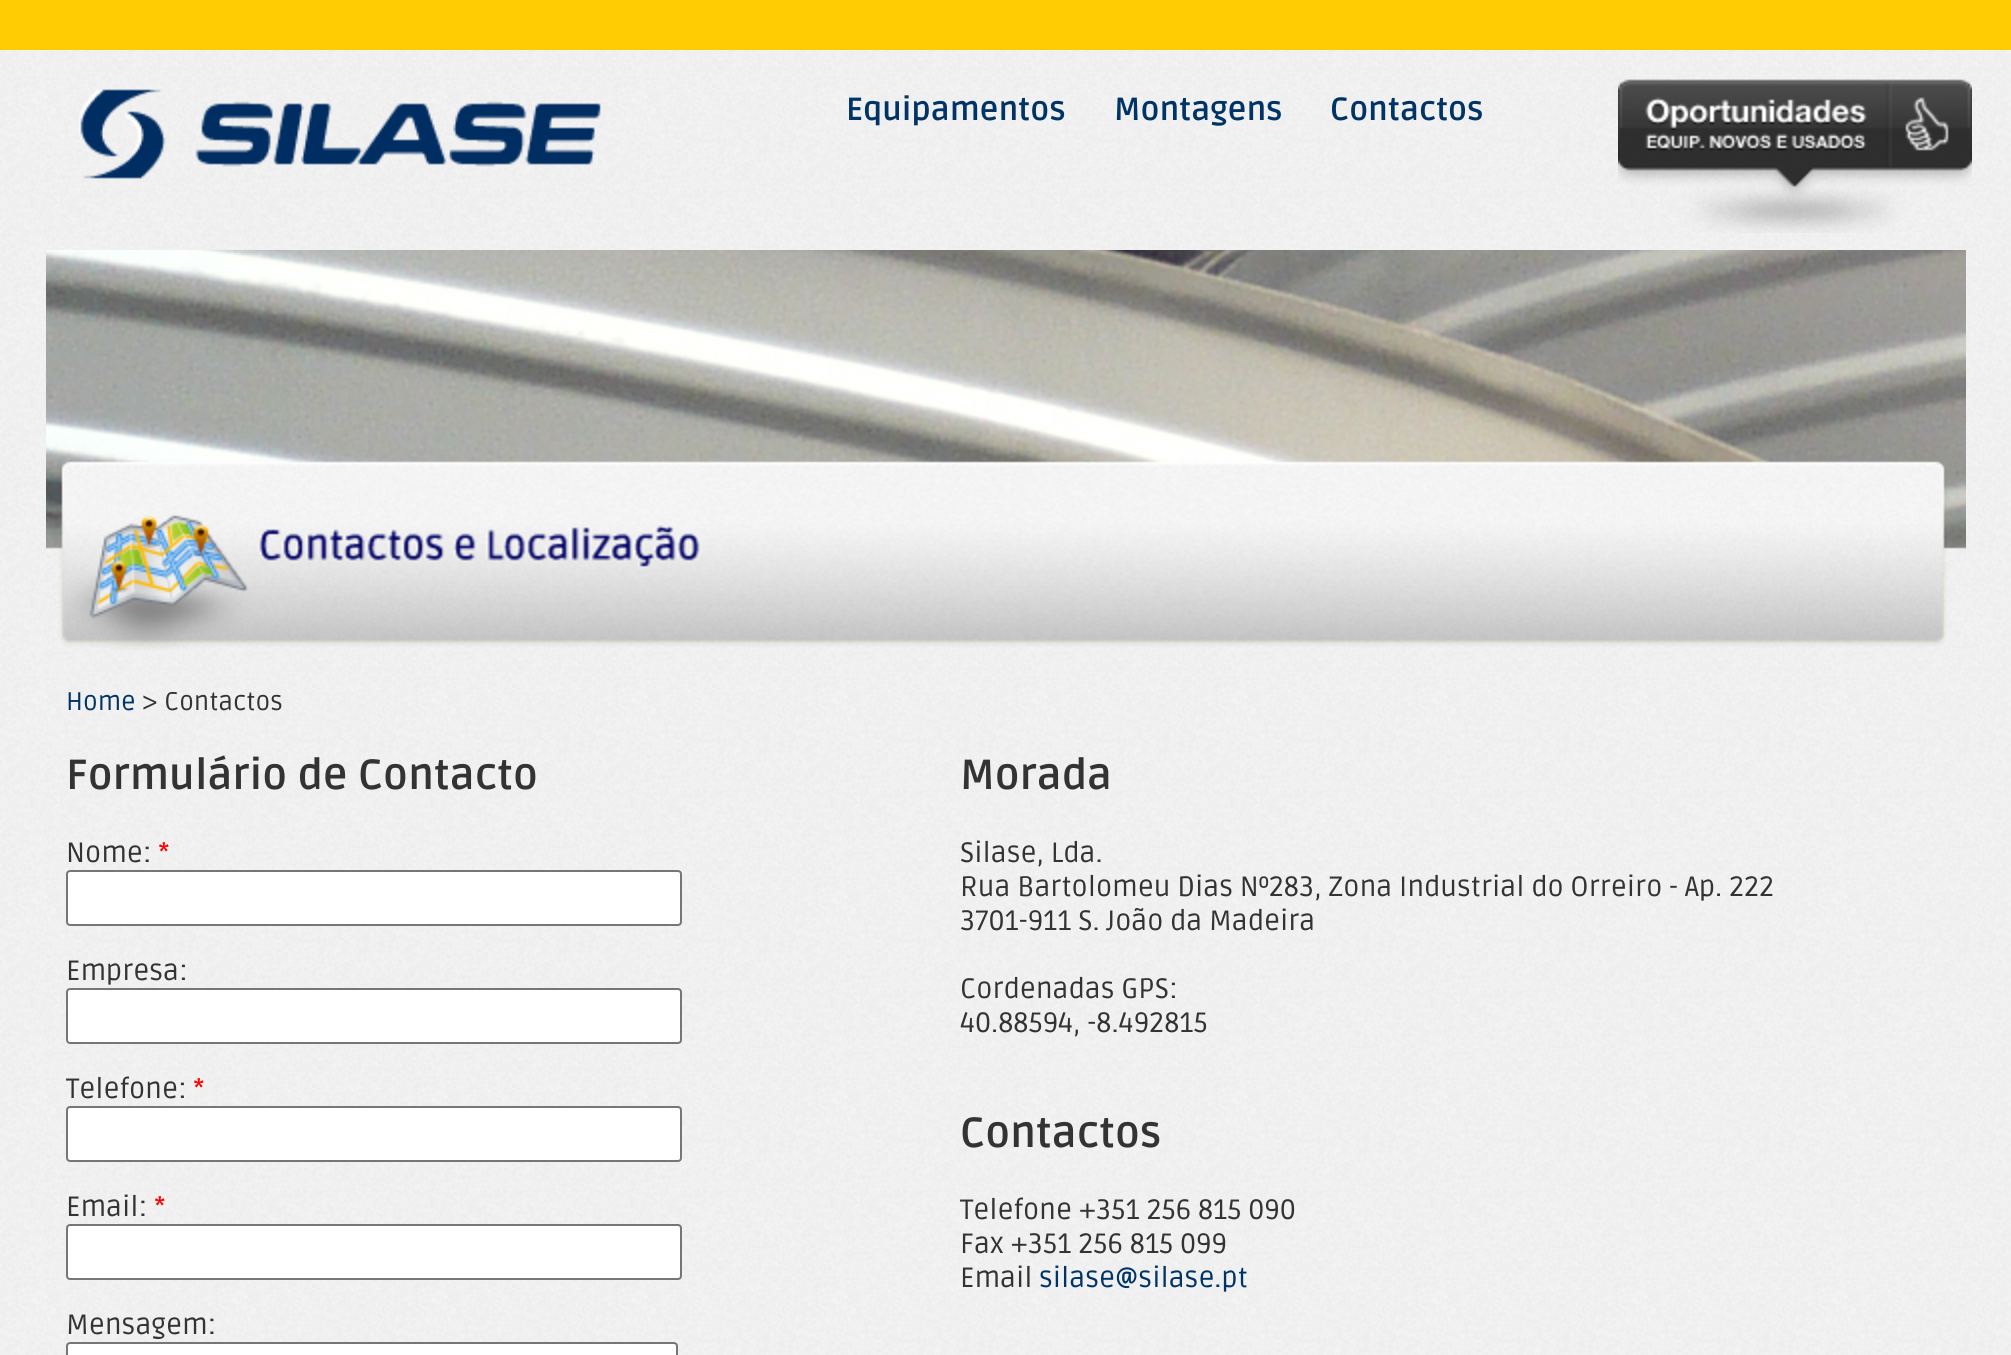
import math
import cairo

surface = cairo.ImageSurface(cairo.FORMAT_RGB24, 2011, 1355)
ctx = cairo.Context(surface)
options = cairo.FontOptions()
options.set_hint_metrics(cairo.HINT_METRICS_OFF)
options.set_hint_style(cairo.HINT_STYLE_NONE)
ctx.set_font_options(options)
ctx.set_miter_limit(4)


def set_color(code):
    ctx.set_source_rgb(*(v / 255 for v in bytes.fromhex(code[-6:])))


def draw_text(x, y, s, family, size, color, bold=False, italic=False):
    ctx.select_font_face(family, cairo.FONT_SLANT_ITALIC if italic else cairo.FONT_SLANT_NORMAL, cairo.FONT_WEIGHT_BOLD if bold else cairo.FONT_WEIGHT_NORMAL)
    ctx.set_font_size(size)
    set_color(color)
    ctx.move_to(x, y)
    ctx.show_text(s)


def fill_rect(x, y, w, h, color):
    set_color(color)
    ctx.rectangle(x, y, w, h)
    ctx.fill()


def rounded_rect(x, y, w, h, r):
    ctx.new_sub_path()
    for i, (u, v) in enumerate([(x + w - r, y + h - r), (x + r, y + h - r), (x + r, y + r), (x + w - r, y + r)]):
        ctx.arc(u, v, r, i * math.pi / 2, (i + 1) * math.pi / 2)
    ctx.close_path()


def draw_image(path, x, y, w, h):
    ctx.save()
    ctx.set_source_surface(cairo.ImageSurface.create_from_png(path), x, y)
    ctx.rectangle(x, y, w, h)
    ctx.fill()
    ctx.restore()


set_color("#ffffff")
ctx.paint()
draw_image("assets/img1.png", 0, 50, 2011, 1305)
fill_rect(0, 0, 2011, 50, "#ffcc03")
draw_image("assets/img2.png", 79, 89, 522, 90)
draw_text(846, 120, "Equipamentos", "Ruda", 32, "#003366", bold=True)
draw_text(1114, 120, "Montagens", "Ruda", 32, "#003366", bold=True)
draw_text(1330, 120, "Contactos", "Ruda", 32, "#003366", bold=True)
draw_image("assets/img3.png", 1618, 79, 354, 154)
draw_image("assets/img4.png", 46, 250, 1920, 400)
draw_text(66, 710, "Home", "Ruda", 25.5, "#003366")
draw_text(142, 710, "> Contactos", "Ruda", 25.5, "#333333")
draw_text(66, 789, "Formulário de Contacto", "Ruda", 42, "#333333", bold=True)
draw_text(960, 789, "Morada", "Ruda", 42, "#333333", bold=True)
draw_text(66, 862, "Nome:", "Ruda", 28, "#333333")
draw_text(158, 862, "*", "Ruda", 28, "#ff0000")
set_color("#ffffff")
rounded_rect(67, 871, 614, 54, 3)
ctx.fill_preserve()
set_color("#767676")
ctx.stroke()
draw_text(66, 980, "Empresa:", "Ruda", 28, "#333333")
set_color("#ffffff")
rounded_rect(67, 989, 614, 54, 3)
ctx.fill_preserve()
set_color("#767676")
ctx.stroke()
draw_text(66, 1098, "Telefone:", "Ruda", 28, "#333333")
draw_text(193, 1098, "*", "Ruda", 28, "#ff0000")
set_color("#ffffff")
rounded_rect(67, 1107, 614, 54, 3)
ctx.fill_preserve()
set_color("#767676")
ctx.stroke()
draw_text(66, 1216, "Email:", "Ruda", 28, "#333333")
draw_text(154, 1216, "*", "Ruda", 28, "#ff0000")
set_color("#ffffff")
rounded_rect(67, 1225, 614, 54, 3)
ctx.fill_preserve()
set_color("#767676")
ctx.stroke()
draw_text(66, 1334, "Mensagem:", "Ruda", 28, "#333333")
set_color("#ffffff")
rounded_rect(67, 1343, 610, 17, 3)
ctx.fill_preserve()
set_color("#767676")
ctx.stroke()
draw_text(960, 862, "Silase, Lda.", "Ruda", 28, "#333333")
draw_text(960, 896, "Rua Bartolomeu Dias Nº283, Zona Industrial do Orreiro - Ap. 222", "Ruda", 28, "#333333")
draw_text(960, 930, "3701-911 S. João da Madeira", "Ruda", 28, "#333333")
draw_text(960, 998, "Cordenadas GPS:", "Ruda", 28, "#333333")
draw_text(960, 1032, "40.88594, -8.492815", "Ruda", 28, "#333333")
draw_text(960, 1147, "Contactos", "Ruda", 42, "#333333", bold=True)
draw_text(960, 1219, "Telefone +351 256 815 090", "Ruda", 28, "#333333")
draw_text(960, 1253, "Fax +351 256 815 099", "Ruda", 28, "#333333")
draw_text(960, 1287, "Email", "Ruda", 28, "#333333")
draw_text(1039, 1287, "silase@silase.pt", "Ruda", 28, "#003366")
surface.write_to_png("output.png")
